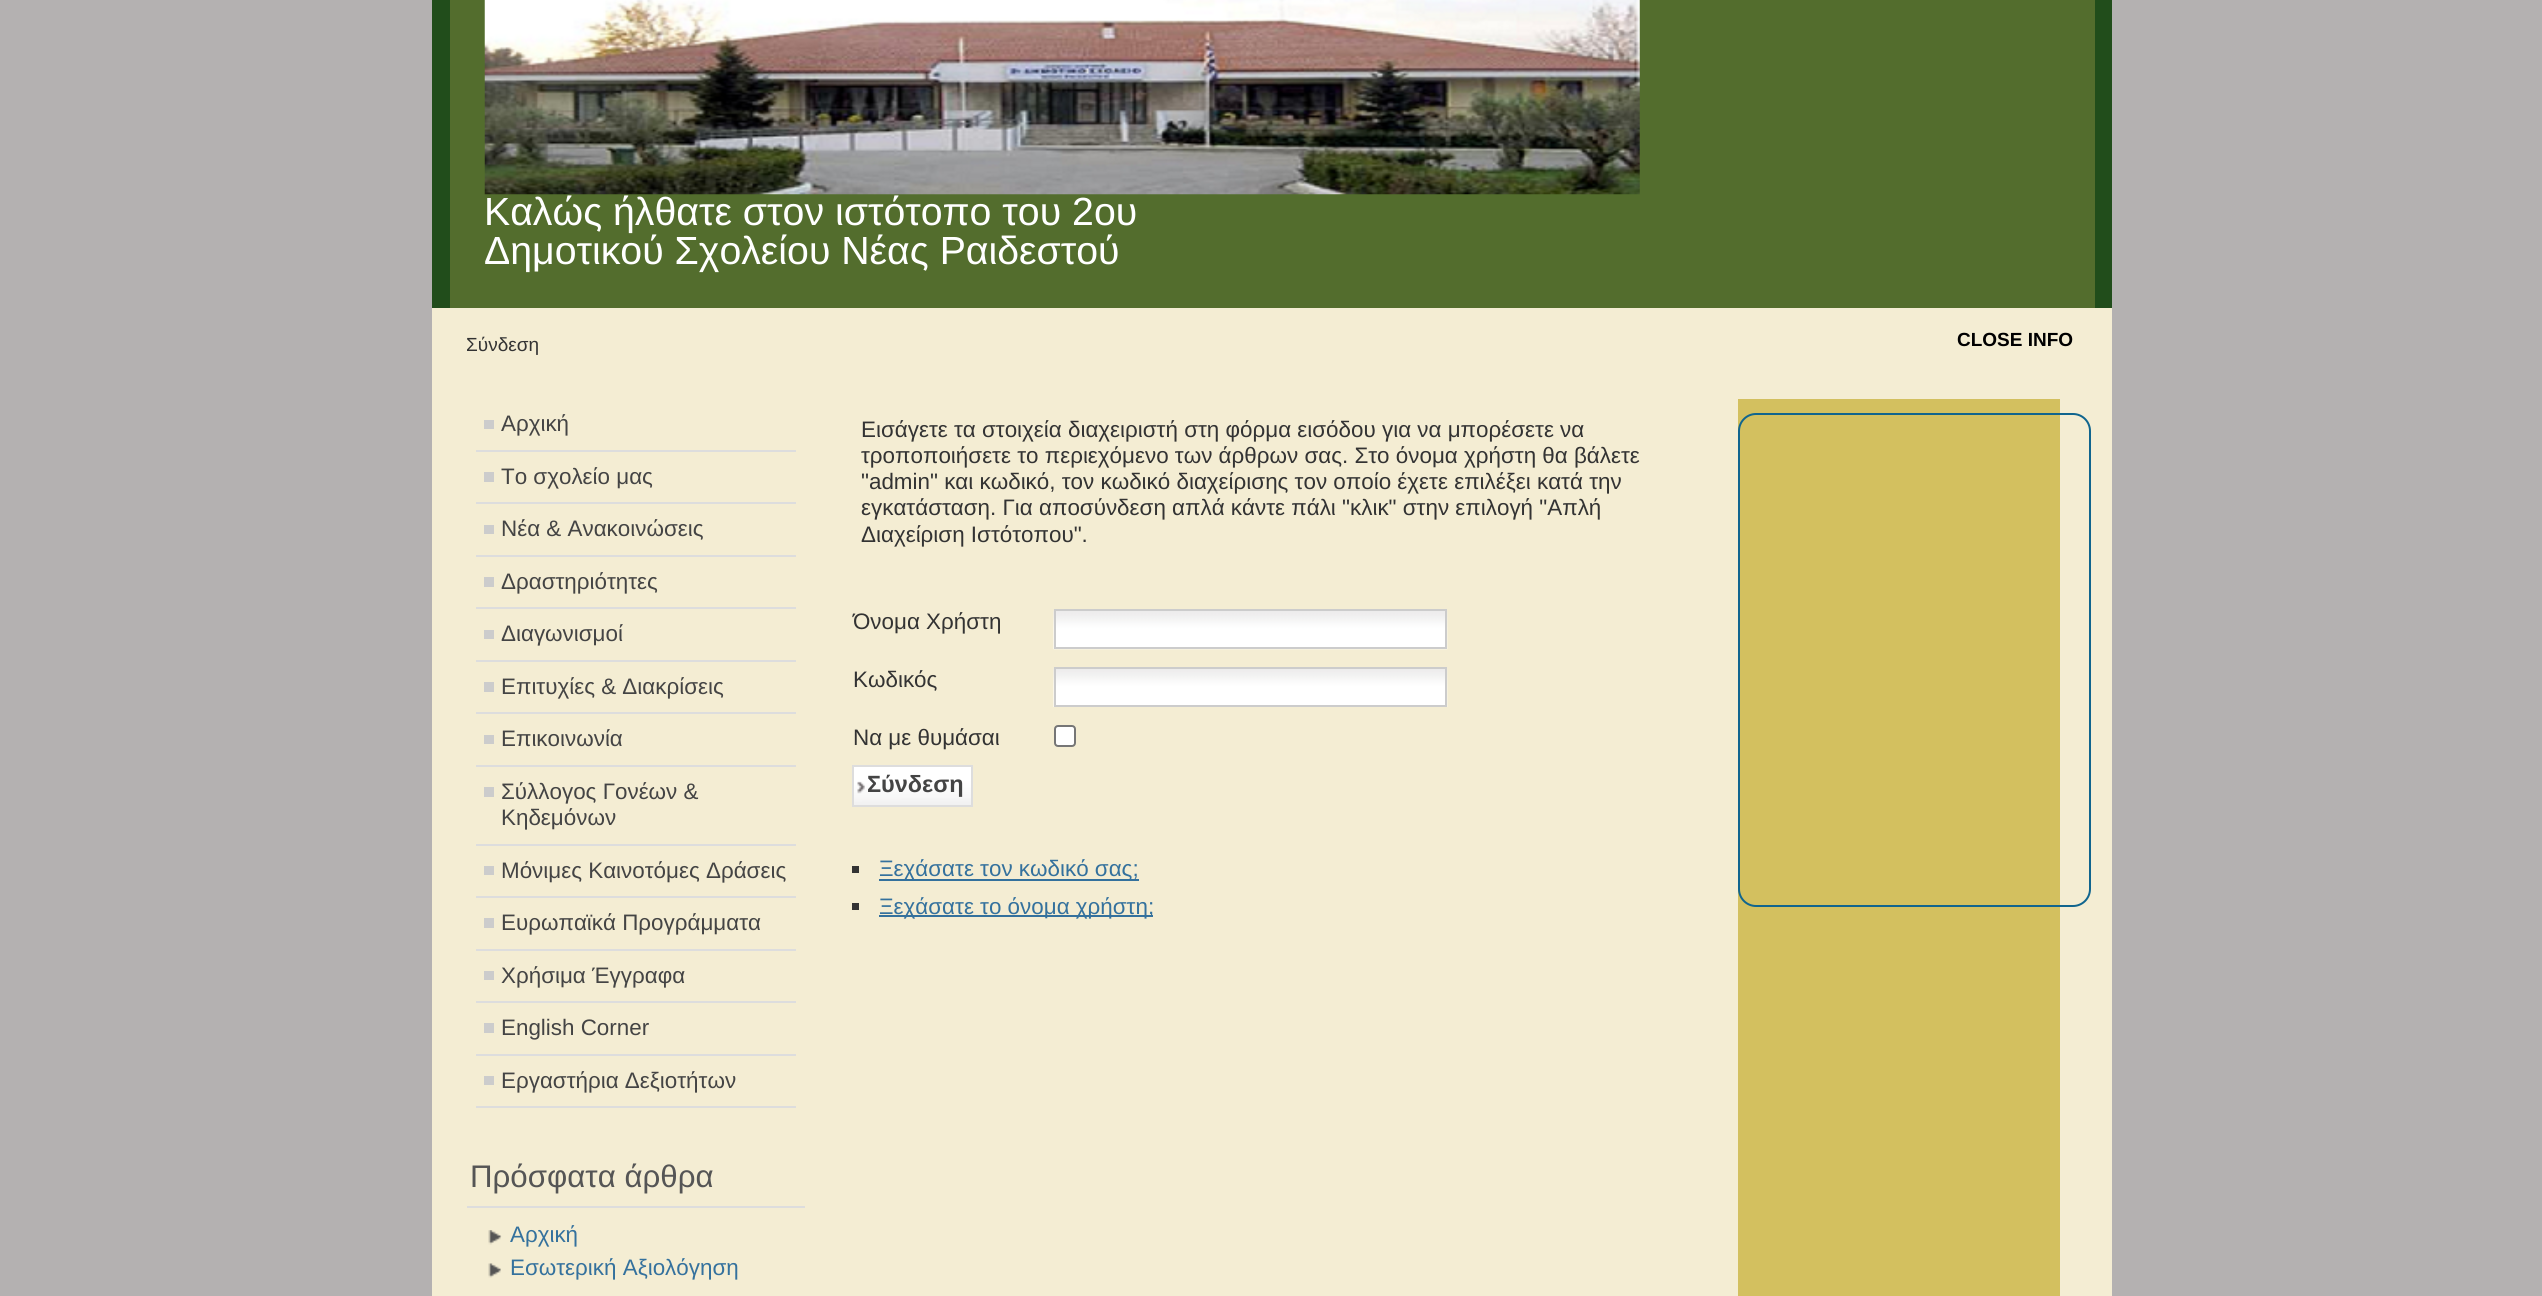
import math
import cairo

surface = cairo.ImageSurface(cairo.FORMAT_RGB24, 2542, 1296)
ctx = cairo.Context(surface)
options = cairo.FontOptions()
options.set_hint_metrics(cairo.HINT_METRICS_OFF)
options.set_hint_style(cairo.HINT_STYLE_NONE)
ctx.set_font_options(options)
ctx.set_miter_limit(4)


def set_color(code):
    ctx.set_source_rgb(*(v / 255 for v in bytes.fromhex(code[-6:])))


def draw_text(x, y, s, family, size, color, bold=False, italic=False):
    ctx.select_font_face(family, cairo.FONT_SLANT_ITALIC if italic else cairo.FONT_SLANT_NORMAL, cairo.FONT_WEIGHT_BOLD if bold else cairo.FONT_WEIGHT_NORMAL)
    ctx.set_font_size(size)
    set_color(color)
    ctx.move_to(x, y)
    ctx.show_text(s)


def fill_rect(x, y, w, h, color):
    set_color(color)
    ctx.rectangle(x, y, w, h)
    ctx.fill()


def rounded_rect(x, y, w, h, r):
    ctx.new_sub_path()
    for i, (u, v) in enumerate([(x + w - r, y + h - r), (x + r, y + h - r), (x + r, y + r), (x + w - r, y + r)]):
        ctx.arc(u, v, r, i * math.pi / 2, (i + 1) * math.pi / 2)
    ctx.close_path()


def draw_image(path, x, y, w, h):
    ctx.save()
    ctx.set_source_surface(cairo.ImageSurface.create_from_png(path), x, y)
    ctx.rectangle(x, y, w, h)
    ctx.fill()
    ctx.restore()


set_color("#b4b1b1")
ctx.paint()
fill_rect(432, 0, 1680, 308, "#214d1b")
fill_rect(450, 0, 1645, 308, "#536d2d")
draw_image("assets/img1.png", 484, 0, 1156, 195)
draw_text(484, 225, "Καλώς ήλθατε στον ιστότοπο του 2ου", "Liberation Sans", 39.25, "#ffffff")
draw_text(484, 264, "Δημοτικού Σχολείου Νέας Ραιδεστού", "Liberation Sans", 39.25, "#ffffff")
fill_rect(432, 308, 1680, 988, "#f4edd3")
draw_text(466, 351, "Σύνδεση", "Liberation Sans", 19, "#333333")
draw_text(1957, 346, "CLOSE INFO", "Liberation Sans", 19, "#000000", bold=True)
fill_rect(476, 450, 320, 2, "#dddddd")
fill_rect(484, 420, 10, 9, "#cccccc")
draw_text(501, 431, "Αρχική", "Liberation Sans", 22.4, "#444444")
fill_rect(476, 502, 320, 2, "#dddddd")
fill_rect(484, 472, 10, 10, "#cccccc")
draw_text(501, 484, "Το σχολείο μας", "Liberation Sans", 22.4, "#444444")
fill_rect(476, 555, 320, 2, "#dddddd")
fill_rect(484, 525, 10, 9, "#cccccc")
draw_text(501, 536, "Νέα & Ανακοινώσεις", "Liberation Sans", 22.4, "#444444")
fill_rect(476, 607, 320, 2, "#dddddd")
fill_rect(484, 577, 10, 10, "#cccccc")
draw_text(501, 589, "Δραστηριότητες", "Liberation Sans", 22.4, "#444444")
fill_rect(476, 660, 320, 2, "#dddddd")
fill_rect(484, 630, 10, 9, "#cccccc")
draw_text(501, 641, "Διαγωνισμοί", "Liberation Sans", 22.4, "#444444")
fill_rect(476, 712, 320, 2, "#dddddd")
fill_rect(484, 682, 10, 10, "#cccccc")
draw_text(501, 694, "Επιτυχίες & Διακρίσεις", "Liberation Sans", 22.4, "#444444")
fill_rect(476, 765, 320, 2, "#dddddd")
fill_rect(484, 735, 10, 9, "#cccccc")
draw_text(501, 746, "Επικοινωνία", "Liberation Sans", 22.4, "#444444")
fill_rect(476, 844, 320, 2, "#dddddd")
fill_rect(484, 787, 10, 10, "#cccccc")
draw_text(501, 799, "Σύλλογος Γονέων &", "Liberation Sans", 22.4, "#444444")
draw_text(501, 825, "Κηδεμόνων", "Liberation Sans", 22.4, "#444444")
fill_rect(476, 896, 320, 2, "#dddddd")
fill_rect(484, 866, 10, 9, "#cccccc")
draw_text(501, 878, "Μόνιμες Καινοτόμες Δράσεις", "Liberation Sans", 22.4, "#444444")
fill_rect(476, 949, 320, 2, "#dddddd")
fill_rect(484, 918, 10, 10, "#cccccc")
draw_text(501, 930, "Ευρωπαϊκά Προγράμματα", "Liberation Sans", 22.4, "#444444")
fill_rect(476, 1001, 320, 2, "#dddddd")
fill_rect(484, 971, 10, 9, "#cccccc")
draw_text(501, 983, "Χρήσιμα Έγγραφα", "Liberation Sans", 22.4, "#444444")
fill_rect(476, 1054, 320, 2, "#dddddd")
fill_rect(484, 1023, 10, 10, "#cccccc")
draw_text(501, 1035, "English Corner", "Liberation Sans", 22.4, "#444444")
fill_rect(476, 1106, 320, 2, "#dddddd")
fill_rect(484, 1076, 10, 9, "#cccccc")
draw_text(501, 1088, "Εργαστήρια Δεξιοτήτων", "Liberation Sans", 22.4, "#444444")
fill_rect(467, 1206, 338, 2, "#dddddd")
draw_text(470, 1187, "Πρόσφατα άρθρα", "Liberation Sans", 31.25, "#555555")
draw_image("assets/img2.png", 488, 1230, 14, 15)
draw_text(510, 1242, "Αρχική", "Liberation Sans", 22.4, "#34719d")
draw_image("assets/img3.png", 488, 1263, 13, 15)
draw_text(510, 1275, "Εσωτερική Αξιολόγηση", "Liberation Sans", 22.4, "#34719d")
draw_text(861, 437, "Εισάγετε τα στοιχεία διαχειριστή στη φόρμα εισόδου για να μπορέσετε να", "Liberation Sans", 22.4, "#333333")
draw_text(861, 463, "τροποποιήσετε το περιεχόμενο των άρθρων σας. Στο όνομα χρήστη θα βάλετε", "Liberation Sans", 22.4, "#333333")
draw_text(861, 489, "\"admin\" και κωδικό, τον κωδικό διαχείρισης τον οποίο έχετε επιλέξει κατά την", "Liberation Sans", 22.4, "#333333")
draw_text(861, 515, "εγκατάσταση. Για αποσύνδεση απλά κάντε πάλι \"κλικ\" στην επιλογή \"Απλή", "Liberation Sans", 22.4, "#333333")
draw_text(861, 542, "Διαχείριση Ιστότοπου\".", "Liberation Sans", 22.4, "#333333")
draw_text(853, 629, "Όνομα Χρήστη", "Liberation Sans", 22.4, "#333333")
draw_image("assets/img4.png", 1053, 610, 395, 40)
ctx.rectangle(1055, 610, 391, 38)
set_color("#cccccc")
ctx.stroke()
draw_text(853, 687, "Κωδικός", "Liberation Sans", 22.4, "#333333")
draw_image("assets/img5.png", 1053, 668, 395, 39)
ctx.rectangle(1055, 668, 391, 38)
set_color("#cccccc")
ctx.stroke()
draw_text(853, 745, "Να με θυμάσαι", "Liberation Sans", 22.4, "#333333")
set_color("#ffffff")
rounded_rect(1055, 726, 20, 20, 3)
ctx.fill_preserve()
set_color("#767676")
ctx.stroke()
fill_rect(854, 767, 117, 14, "#ffffff")
draw_image("assets/img6.png", 854, 781, 117, 24)
ctx.rectangle(853, 766, 119, 40)
set_color("#dddddd")
ctx.stroke()
draw_text(867, 792, "Σύνδεση", "Liberation Sans", 23.5, "#444444", bold=True)
fill_rect(852, 866, 7, 7, "#333333")
fill_rect(879, 879, 260, 2, "#34719d")
draw_text(879, 876, "Ξεχάσατε τον κωδικό σας;", "Liberation Sans", 22.4, "#34719d")
fill_rect(852, 903, 7, 7, "#333333")
fill_rect(879, 915, 274, 2, "#34719d")
draw_text(879, 914, "Ξεχάσατε το όνομα χρήστη;", "Liberation Sans", 22.4, "#34719d")
fill_rect(1738, 399, 322, 897, "#d3c05f")
rounded_rect(1739, 414, 351, 492, 17)
set_color("#10658e")
ctx.stroke()
surface.write_to_png("output.png")
